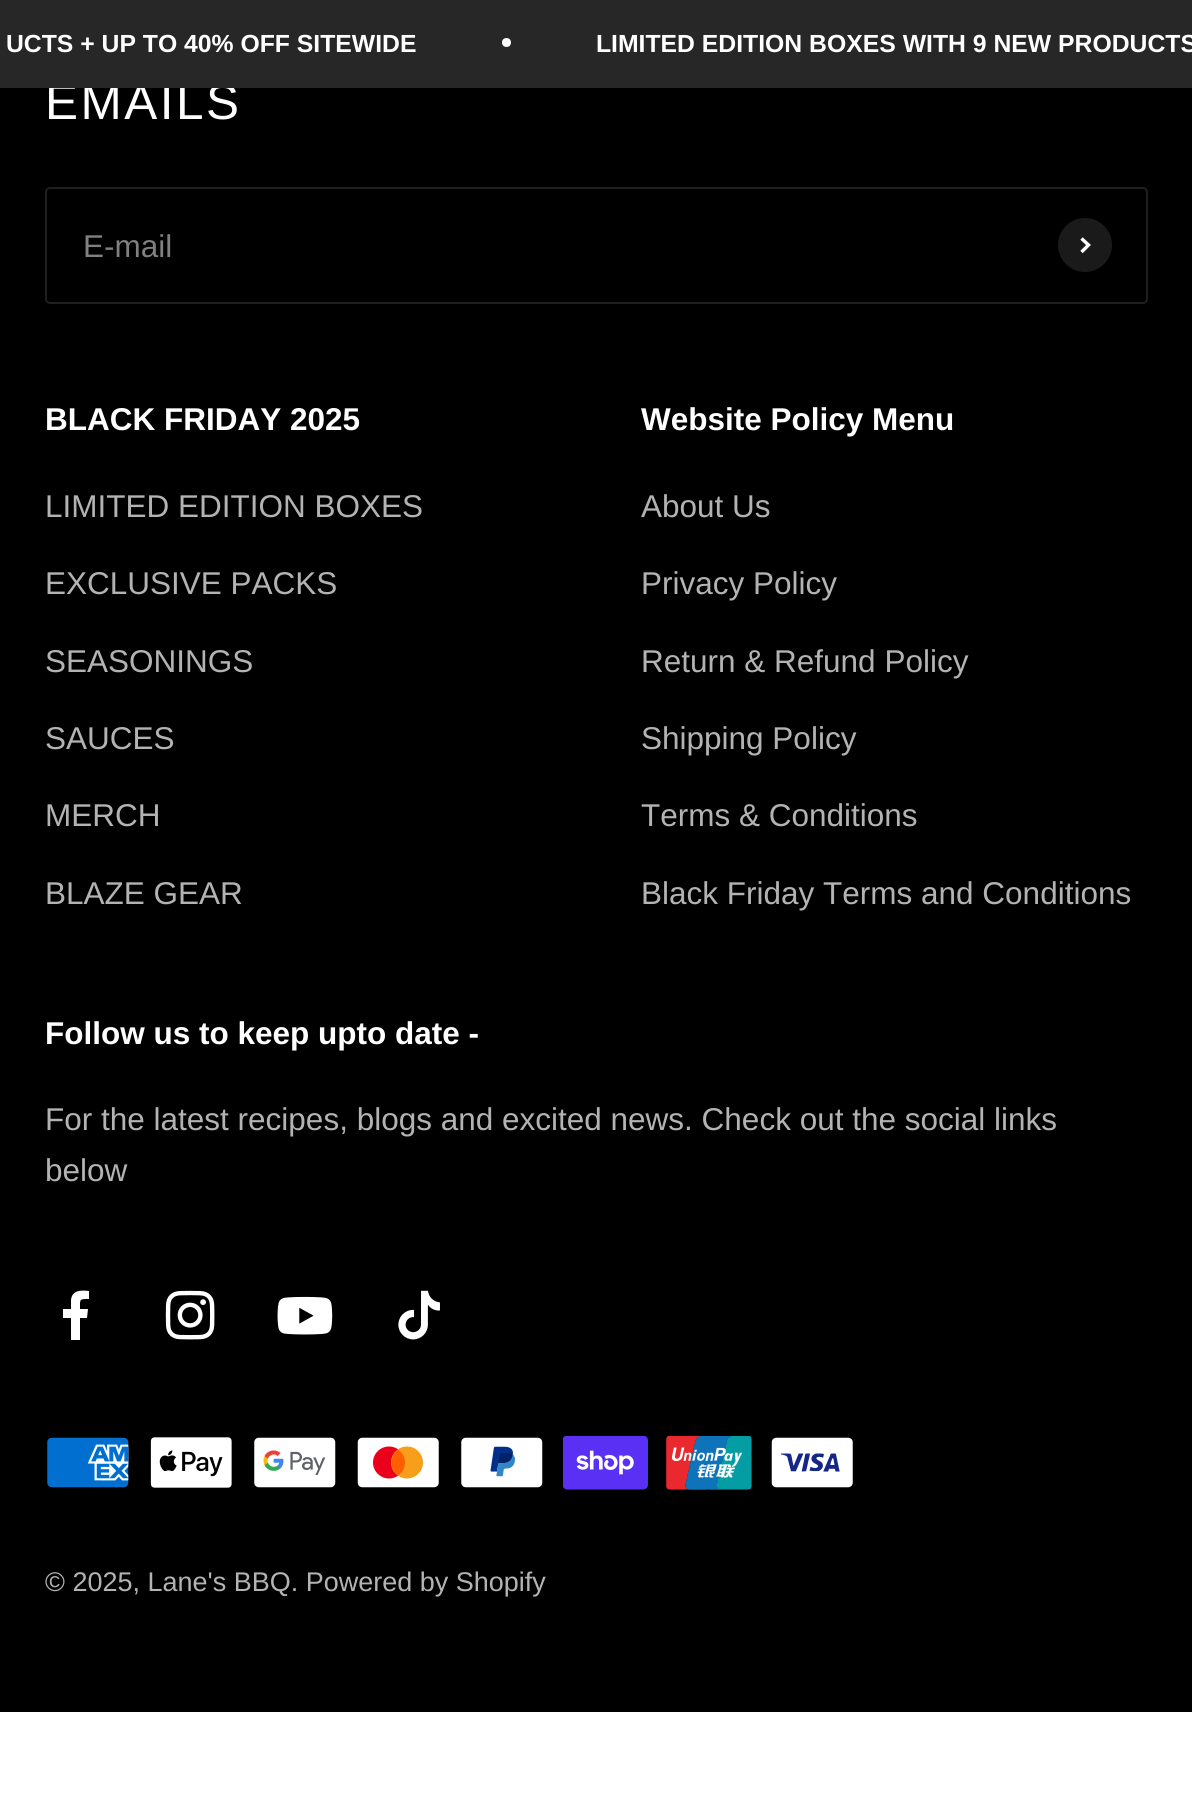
import math
import cairo

surface = cairo.ImageSurface(cairo.FORMAT_RGB24, 1192, 1809)
ctx = cairo.Context(surface)
options = cairo.FontOptions()
options.set_hint_metrics(cairo.HINT_METRICS_OFF)
options.set_hint_style(cairo.HINT_STYLE_NONE)
ctx.set_font_options(options)
ctx.set_miter_limit(4)


def set_color(code):
    ctx.set_source_rgb(*(v / 255 for v in bytes.fromhex(code[-6:])))


def draw_text(x, y, s, family, size, color, bold=False, italic=False):
    ctx.select_font_face(family, cairo.FONT_SLANT_ITALIC if italic else cairo.FONT_SLANT_NORMAL, cairo.FONT_WEIGHT_BOLD if bold else cairo.FONT_WEIGHT_NORMAL)
    ctx.set_font_size(size)
    set_color(color)
    ctx.move_to(x, y)
    ctx.show_text(s)


def draw_spaced(x, y, s, letter, word):
    ctx.move_to(x, y)
    for ch in s:
        ctx.show_text(ch)
        ctx.rel_move_to(letter + word * (ch == ' '), 0)


def fill_rect(x, y, w, h, color):
    set_color(color)
    ctx.rectangle(x, y, w, h)
    ctx.fill()


def rounded_rect(x, y, w, h, r):
    ctx.new_sub_path()
    for i, (u, v) in enumerate([(x + w - r, y + h - r), (x + r, y + h - r), (x + r, y + r), (x + w - r, y + r)]):
        ctx.arc(u, v, r, i * math.pi / 2, (i + 1) * math.pi / 2)
    ctx.close_path()


def draw_image(path, x, y, w, h):
    ctx.save()
    ctx.set_source_surface(cairo.ImageSurface.create_from_png(path), x, y)
    ctx.rectangle(x, y, w, h)
    ctx.fill()
    ctx.restore()


set_color("#ffffff")
ctx.paint()
fill_rect(0, 88, 1192, 1624, "#000000")
ctx.select_font_face("Liberation Sans")
ctx.set_font_size(49.5)
set_color("#ffffff")
draw_spaced(45, 119, "EMAILS", 2.5, 0)
fill_rect(0, 0, 1192, 88, "#272727")
draw_text(6, 52, "UCTS + UP TO 40% OFF SITEWIDE", "Liberation Sans", 24.75, "#ffffff", bold=True)
ctx.new_path()
ctx.arc(506.5, 42.5, 4.5, 0, 2 * math.pi)
ctx.fill()
draw_text(596, 52, "LIMITED EDITION BOXES WITH 9 NEW PRODUCTS", "Liberation Sans", 24.75, "#ffffff", bold=True)
rounded_rect(46, 188, 1101, 115, 4)
set_color("#1f1f1f")
ctx.stroke()
draw_text(83, 257, "E-mail", "Liberation Sans", 31.5, "#808080")
set_color("#1a1a1a")
ctx.new_path()
ctx.arc(1085, 245, 27, 0, 2 * math.pi)
ctx.fill()
ctx.new_path()
ctx.move_to(1081.5, 252)
ctx.line_to(1088.5, 245)
ctx.line_to(1081.5, 238.5)
set_color("#ffffff")
ctx.set_line_width(3.4)
ctx.stroke()
draw_text(45, 430, "BLACK FRIDAY 2025", "Liberation Sans", 31.5, "#ffffff", bold=True)
draw_text(45, 517, "LIMITED EDITION BOXES", "Liberation Sans", 31.5, "#b3b3b3")
draw_text(45, 594, "EXCLUSIVE PACKS", "Liberation Sans", 31.5, "#b3b3b3")
draw_text(45, 672, "SEASONINGS", "Liberation Sans", 31.5, "#b3b3b3")
draw_text(45, 749, "SAUCES", "Liberation Sans", 31.5, "#b3b3b3")
draw_text(45, 826, "MERCH", "Liberation Sans", 31.5, "#b3b3b3")
draw_text(45, 904, "BLAZE GEAR", "Liberation Sans", 31.5, "#b3b3b3")
draw_text(641, 430, "Website Policy Menu", "Liberation Sans", 31.5, "#ffffff", bold=True)
draw_text(641, 517, "About Us", "Liberation Sans", 31.5, "#b3b3b3")
draw_text(641, 594, "Privacy Policy", "Liberation Sans", 31.5, "#b3b3b3")
draw_text(641, 672, "Return & Refund Policy", "Liberation Sans", 31.5, "#b3b3b3")
draw_text(641, 749, "Shipping Policy", "Liberation Sans", 31.5, "#b3b3b3")
draw_text(641, 826, "Terms & Conditions", "Liberation Sans", 31.5, "#b3b3b3")
draw_text(641, 904, "Black Friday Terms and Conditions", "Liberation Sans", 31.5, "#b3b3b3")
draw_text(45, 1044, "Follow us to keep upto date -", "Liberation Sans", 31.5, "#ffffff", bold=True)
draw_text(45, 1130, "For the latest recipes, blogs and excited news. Check out the social links", "Liberation Sans", 31.5, "#b3b3b3")
draw_text(45, 1181, "below", "Liberation Sans", 31.5, "#b3b3b3")
set_color("#ffffff")
ctx.set_fill_rule(cairo.FILL_RULE_EVEN_ODD)
ctx.new_path()
ctx.move_to(71, 1340)
ctx.line_to(71, 1318)
ctx.line_to(63, 1318)
ctx.line_to(63, 1309)
ctx.line_to(71, 1309)
ctx.line_to(71, 1300)
ctx.curve_to(72, 1290, 81, 1290, 89, 1291)
ctx.line_to(89, 1299)
ctx.curve_to(79, 1299, 80, 1299, 80, 1309)
ctx.line_to(88, 1309)
ctx.line_to(87, 1318)
ctx.line_to(80, 1318)
ctx.line_to(80, 1340)
ctx.close_path()
ctx.fill()
draw_image("assets/img1.png", 165, 1290, 50, 50)
draw_image("assets/img2.png", 277, 1296, 56, 39)
draw_image("assets/img3.png", 398, 1290, 42, 50)
draw_image("assets/img4.png", 47, 1437, 82, 51)
draw_image("assets/img5.png", 150, 1437, 82, 51)
draw_image("assets/img6.png", 254, 1437, 82, 51)
draw_image("assets/img7.png", 357, 1437, 82, 51)
draw_image("assets/img8.png", 461, 1437, 82, 51)
draw_image("assets/img9.png", 563, 1436, 85, 54)
draw_image("assets/img10.png", 666, 1436, 86, 54)
draw_image("assets/img11.png", 771, 1437, 82, 51)
draw_text(45, 1591, "© 2025, Lane's BBQ. Powered by Shopify", "Liberation Sans", 27, "#b3b3b3")
surface.write_to_png("output.png")
